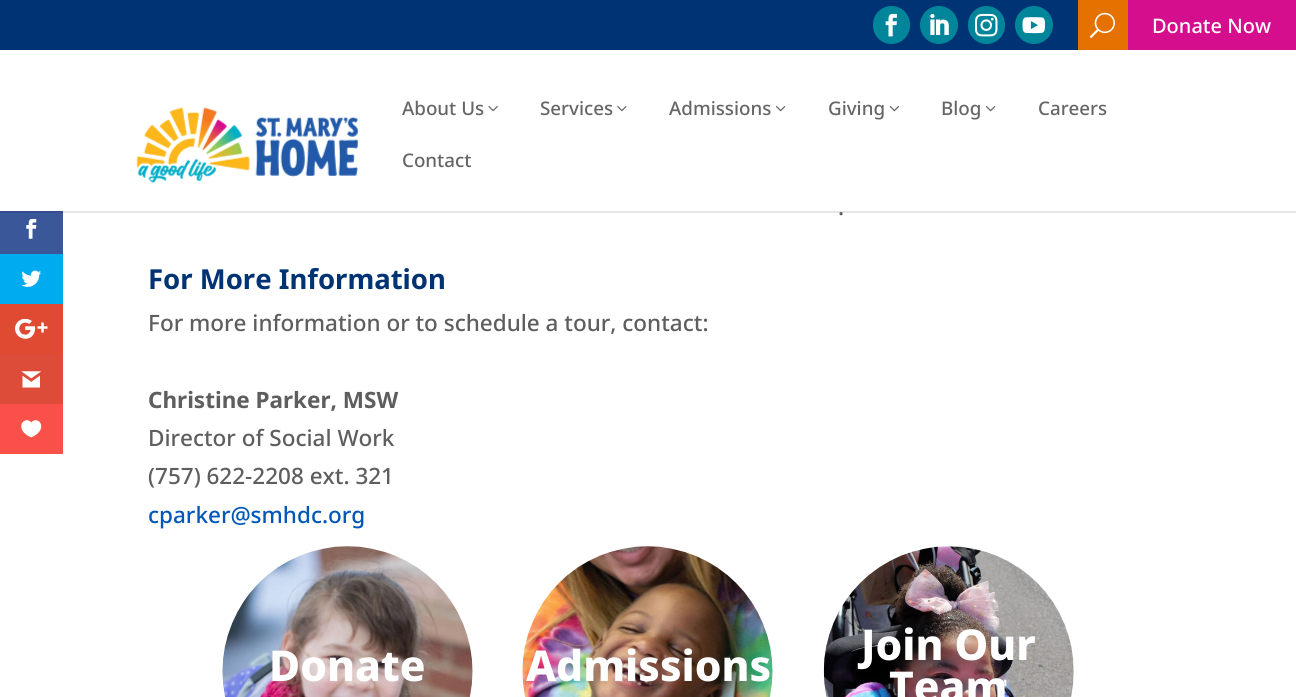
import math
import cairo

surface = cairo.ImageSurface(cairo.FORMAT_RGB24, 1296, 697)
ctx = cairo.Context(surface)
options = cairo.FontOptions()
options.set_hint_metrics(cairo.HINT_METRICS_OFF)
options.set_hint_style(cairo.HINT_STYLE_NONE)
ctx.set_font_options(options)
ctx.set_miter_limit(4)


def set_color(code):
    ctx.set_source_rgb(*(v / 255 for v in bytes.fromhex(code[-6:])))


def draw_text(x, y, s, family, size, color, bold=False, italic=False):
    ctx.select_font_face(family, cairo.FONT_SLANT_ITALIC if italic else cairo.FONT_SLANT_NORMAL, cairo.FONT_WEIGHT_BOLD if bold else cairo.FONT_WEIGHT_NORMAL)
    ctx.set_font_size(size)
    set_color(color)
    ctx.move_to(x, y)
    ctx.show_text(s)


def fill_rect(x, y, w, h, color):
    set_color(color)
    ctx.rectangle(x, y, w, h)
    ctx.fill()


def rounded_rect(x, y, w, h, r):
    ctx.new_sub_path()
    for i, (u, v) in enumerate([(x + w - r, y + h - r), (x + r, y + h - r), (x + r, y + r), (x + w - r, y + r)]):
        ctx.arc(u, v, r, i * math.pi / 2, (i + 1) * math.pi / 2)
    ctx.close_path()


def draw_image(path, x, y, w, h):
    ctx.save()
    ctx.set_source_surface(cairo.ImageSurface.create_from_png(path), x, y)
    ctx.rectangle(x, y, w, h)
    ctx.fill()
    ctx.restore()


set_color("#ffffff")
ctx.paint()
fill_rect(0, 211, 63, 43, "#3a579a")
draw_image("assets/img1.png", 26, 219, 11, 20)
fill_rect(0, 254, 63, 50, "#00abf0")
draw_image("assets/img2.png", 21, 270, 21, 17)
fill_rect(0, 304, 63, 50, "#df4a32")
draw_image("assets/img3.png", 15, 319, 33, 20)
fill_rect(0, 354, 63, 50, "#dd4b39")
draw_image("assets/img4.png", 21, 371, 21, 17)
fill_rect(0, 404, 63, 50, "#f95149")
draw_image("assets/img5.png", 21, 420, 21, 18)
fill_rect(0, 0, 1078, 50, "#003374")
set_color("#00859b")
rounded_rect(873, 6, 37, 38, 18.5)
ctx.fill()
draw_image("assets/img6.png", 885, 13, 12, 24)
ctx.arc(939, 25, 19, 0, 2 * math.pi)
ctx.fill()
draw_image("assets/img7.png", 930, 13, 19, 22)
rounded_rect(968, 6, 37, 38, 18.5)
ctx.fill()
draw_image("assets/img8.png", 975, 13, 23, 24)
ctx.arc(1034, 25, 19, 0, 2 * math.pi)
ctx.fill()
draw_image("assets/img9.png", 1022, 17, 23, 17)
fill_rect(1078, 0, 50, 50, "#e57200")
draw_image("assets/img10.png", 1089, 12, 26, 26)
fill_rect(1128, 0, 168, 50, "#d40e8c")
draw_text(1152, 33, "Donate Now", "Noto Sans Medium", 20, "#ffffff")
ctx.set_source_rgba(0, 0, 0, 0.1)
ctx.rectangle(0, 211, 1296, 2)
ctx.fill()
draw_image("assets/img11.png", 136, 107, 223, 76)
draw_text(402, 115, "About Us", "Noto Sans Medium", 18.75, "#666666")
draw_image("assets/img12.png", 488, 106, 10, 6)
draw_text(540, 115, "Services", "Noto Sans Medium", 18.75, "#666666")
draw_image("assets/img13.png", 617, 106, 10, 6)
draw_text(669, 115, "Admissions", "Noto Sans Medium", 18.75, "#666666")
draw_image("assets/img14.png", 776, 106, 10, 6)
draw_text(828, 115, "Giving", "Noto Sans Medium", 18.75, "#666666")
draw_image("assets/img15.png", 889, 106, 10, 6)
draw_text(941, 115, "Blog", "Noto Sans Medium", 18.75, "#666666")
draw_image("assets/img14.png", 986, 106, 10, 6)
draw_text(1038, 115, "Careers", "Noto Sans Medium", 18.75, "#666666")
draw_text(402, 167, "Contact", "Noto Sans Medium", 18.75, "#666666")
draw_text(838, 215, ".", "Noto Sans Medium", 22.5, "#5e5e5e")
draw_text(148, 289, "For More Information", "Noto Sans", 27.5, "#003374", bold=True)
draw_text(148, 331, "For more information or to schedule a tour, contact:", "Noto Sans Medium", 22.5, "#5e5e5e")
draw_text(148, 408, "Christine Parker, MSW", "Noto Sans", 22.5, "#5e5e5e", bold=True)
draw_text(148, 446, "Director of Social Work", "Noto Sans Medium", 22.5, "#5e5e5e")
draw_text(148, 484, "(757) 622-2208 ext. 321", "Noto Sans Medium", 22.5, "#5e5e5e")
draw_text(148, 523, "cparker@smhdc.org", "Noto Sans Medium", 22.5, "#0057b8")
draw_image("assets/img16.png", 222, 546, 251, 151)
draw_text(269, 681, "Donate", "Noto Sans ExtraBold", 42.5, "#ffffff")
draw_image("assets/img17.png", 522, 546, 251, 151)
draw_text(526, 681, "Admissions", "Noto Sans ExtraBold", 42.5, "#ffffff")
draw_image("assets/img18.png", 823, 546, 251, 151)
draw_text(861, 660, "Join Our", "Noto Sans ExtraBold", 42.5, "#ffffff")
draw_text(889, 702, "Team", "Noto Sans ExtraBold", 42.5, "#ffffff")
surface.write_to_png("output.png")
